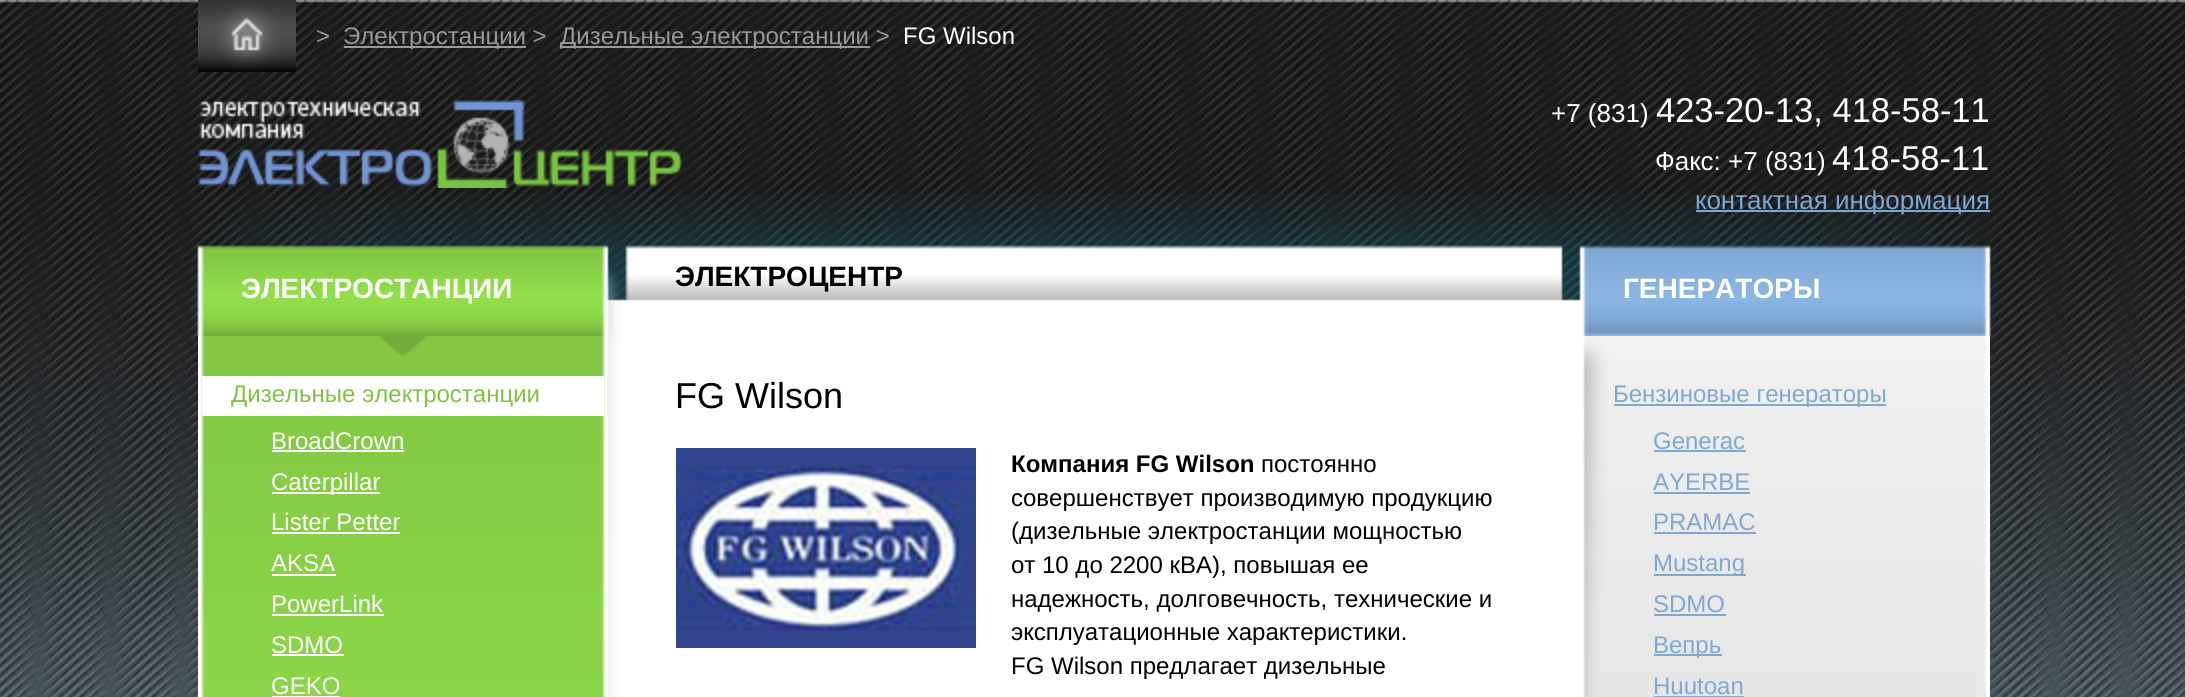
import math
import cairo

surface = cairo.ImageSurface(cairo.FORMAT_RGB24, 2185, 697)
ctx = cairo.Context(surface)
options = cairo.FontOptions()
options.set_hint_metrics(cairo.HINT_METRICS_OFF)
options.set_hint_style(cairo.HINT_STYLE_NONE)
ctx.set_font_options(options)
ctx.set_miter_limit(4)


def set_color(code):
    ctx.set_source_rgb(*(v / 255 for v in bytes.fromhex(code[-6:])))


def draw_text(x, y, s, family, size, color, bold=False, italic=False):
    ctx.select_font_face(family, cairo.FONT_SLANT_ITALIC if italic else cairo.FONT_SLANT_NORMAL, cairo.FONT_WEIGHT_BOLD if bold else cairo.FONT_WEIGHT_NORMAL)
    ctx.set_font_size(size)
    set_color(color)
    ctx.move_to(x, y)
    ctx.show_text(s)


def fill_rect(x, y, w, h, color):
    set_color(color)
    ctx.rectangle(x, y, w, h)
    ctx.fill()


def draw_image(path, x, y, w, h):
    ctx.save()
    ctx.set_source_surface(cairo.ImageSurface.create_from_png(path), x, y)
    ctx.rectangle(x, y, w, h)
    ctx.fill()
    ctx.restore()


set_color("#ffffff")
ctx.paint()
draw_image("assets/img1.png", 0, 0, 2185, 697)
draw_image("assets/img2.png", 198, 0, 98, 72)
draw_text(316, 44, ">", "Liberation Sans", 24, "#999999")
fill_rect(344, 46, 182, 2, "#999999")
draw_text(343, 44, "Электростанции >", "Liberation Sans", 24, "#999999")
fill_rect(560, 46, 310, 2, "#999999")
draw_text(560, 44, "Дизельные электростанции >", "Liberation Sans", 24, "#999999")
draw_text(903, 44, "FG Wilson", "Liberation Sans", 24, "#ffffff")
draw_image("assets/img3.png", 198, 100, 484, 88)
draw_text(1551, 122, "+7 (831)", "Liberation Sans", 26, "#ffffff")
draw_text(1656, 122, "423-20-13, 418-58-11", "Liberation Sans", 34.5, "#ffffff")
draw_text(1655, 170, "Факс: +7 (831)", "Liberation Sans", 26, "#ffffff")
draw_text(1832, 170, "418-58-11", "Liberation Sans", 34.5, "#ffffff")
draw_image("assets/img4.png", 191, 194, 1806, 142)
fill_rect(1696, 210, 294, 2, "#80a7d2")
draw_text(1695, 209, "контактная информация", "Liberation Sans", 26, "#80a7d2")
draw_image("assets/img5.png", 198, 336, 1792, 361)
draw_image("assets/img6.png", 201, 336, 1786, 361)
draw_text(241, 298, "ЭЛЕКТРОСТАНЦИИ", "Liberation Sans", 28, "#ffffff", bold=True)
fill_rect(202, 376, 402, 40, "#ffffff")
draw_text(231, 402, "Дизельные электростанции", "Liberation Sans", 24, "#80c342")
draw_text(271, 449, "BroadCrown", "Liberation Sans", 24, "#ffffff")
fill_rect(272, 450, 132, 2, "#ffffff")
fill_rect(272, 492, 108, 2, "#ffffff")
draw_text(271, 490, "Caterpillar", "Liberation Sans", 24, "#ffffff")
draw_text(271, 530, "Lister Petter", "Liberation Sans", 24, "#ffffff")
fill_rect(272, 532, 128, 2, "#ffffff")
draw_text(271, 571, "AKSA", "Liberation Sans", 24, "#ffffff")
fill_rect(272, 574, 64, 2, "#ffffff")
draw_text(271, 612, "PowerLink", "Liberation Sans", 24, "#ffffff")
fill_rect(272, 614, 112, 2, "#ffffff")
draw_text(271, 653, "SDMO", "Liberation Sans", 24, "#ffffff")
fill_rect(272, 654, 72, 2, "#ffffff")
draw_text(271, 694, "GEKO", "Liberation Sans", 24, "#ffffff")
fill_rect(272, 696, 68, 1, "#ffffff")
draw_text(675, 286, "ЭЛЕКТРОЦЕНТР", "Liberation Sans", 28, "#000000", bold=True)
draw_text(675, 408, "FG Wilson", "Liberation Sans", 36, "#000000")
draw_image("assets/img7.png", 676, 448, 300, 200)
draw_text(1011, 472, "Компания FG Wilson", "Liberation Sans", 24, "#000000", bold=True)
draw_text(1261, 472, "постоянно", "Liberation Sans", 24, "#000000")
draw_text(1011, 506, "совершенствует производимую продукцию", "Liberation Sans", 24, "#000000")
draw_text(1011, 539, "(дизельные электростанции мощностью", "Liberation Sans", 24, "#000000")
draw_text(1011, 573, "от 10 до 2200 кВА), повышая ее", "Liberation Sans", 24, "#000000")
draw_text(1011, 607, "надежность, долговечность, технические и", "Liberation Sans", 24, "#000000")
draw_text(1011, 640, "эксплуатационные характеристики.", "Liberation Sans", 24, "#000000")
draw_text(1011, 674, "FG Wilson предлагает дизельные", "Liberation Sans", 24, "#000000")
draw_text(1623, 298, "ГЕНЕРАТОРЫ", "Liberation Sans", 28, "#ffffff", bold=True)
fill_rect(1614, 404, 272, 2, "#80a7d2")
draw_text(1613, 402, "Бензиновые генераторы", "Liberation Sans", 24, "#80a7d2")
draw_text(1653, 449, "Generac", "Liberation Sans", 24, "#80a7d2")
fill_rect(1654, 450, 92, 2, "#80a7d2")
draw_text(1653, 490, "AYERBE", "Liberation Sans", 24, "#80a7d2")
fill_rect(1654, 492, 96, 2, "#80a7d2")
draw_text(1653, 530, "PRAMAC", "Liberation Sans", 24, "#80a7d2")
fill_rect(1654, 532, 102, 2, "#80a7d2")
fill_rect(1654, 574, 92, 2, "#80a7d2")
draw_text(1653, 571, "Mustang", "Liberation Sans", 24, "#80a7d2")
draw_text(1653, 612, "SDMO", "Liberation Sans", 24, "#80a7d2")
fill_rect(1654, 614, 72, 2, "#80a7d2")
fill_rect(1654, 654, 68, 2, "#80a7d2")
draw_text(1653, 653, "Вепрь", "Liberation Sans", 24, "#80a7d2")
draw_text(1653, 694, "Huutoan", "Liberation Sans", 24, "#80a7d2")
fill_rect(1654, 696, 90, 1, "#80a7d2")
surface.write_to_png("output.png")
